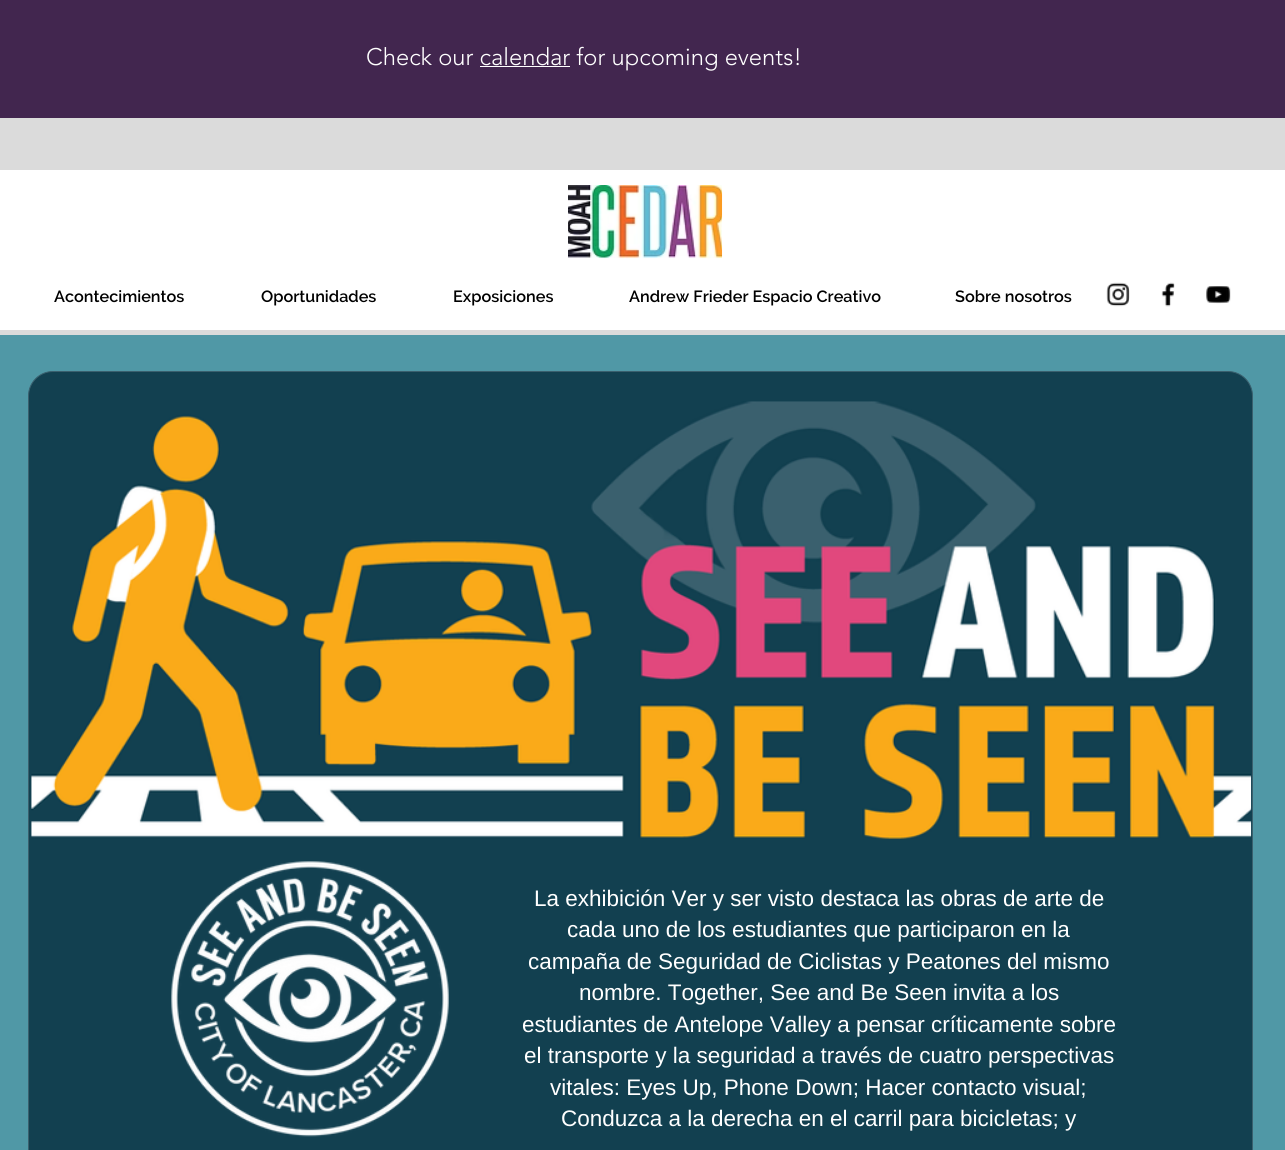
import math
import cairo

surface = cairo.ImageSurface(cairo.FORMAT_RGB24, 1285, 1150)
ctx = cairo.Context(surface)
options = cairo.FontOptions()
options.set_hint_metrics(cairo.HINT_METRICS_OFF)
options.set_hint_style(cairo.HINT_STYLE_NONE)
ctx.set_font_options(options)
ctx.set_miter_limit(4)


def set_color(code):
    ctx.set_source_rgb(*(v / 255 for v in bytes.fromhex(code[-6:])))


def draw_text(x, y, s, family, size, color, bold=False, italic=False):
    ctx.select_font_face(family, cairo.FONT_SLANT_ITALIC if italic else cairo.FONT_SLANT_NORMAL, cairo.FONT_WEIGHT_BOLD if bold else cairo.FONT_WEIGHT_NORMAL)
    ctx.set_font_size(size)
    set_color(color)
    ctx.move_to(x, y)
    ctx.show_text(s)


def fill_rect(x, y, w, h, color):
    set_color(color)
    ctx.rectangle(x, y, w, h)
    ctx.fill()


def rounded_rect(x, y, w, h, r):
    ctx.new_sub_path()
    for i, (u, v) in enumerate([(x + w - r, y + h - r), (x + r, y + h - r), (x + r, y + r), (x + w - r, y + r)]):
        ctx.arc(u, v, r, i * math.pi / 2, (i + 1) * math.pi / 2)
    ctx.close_path()


def draw_image(path, x, y, w, h):
    ctx.save()
    ctx.set_source_surface(cairo.ImageSurface.create_from_png(path), x, y)
    ctx.rectangle(x, y, w, h)
    ctx.fill()
    ctx.restore()


set_color("#dbdbdb")
ctx.paint()
fill_rect(0, 0, 1285, 118, "#42264f")
draw_text(366, 65, "Check our calendar for upcoming events!", "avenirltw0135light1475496 Light", 23.75, "#ffffff")
fill_rect(480, 66, 90, 1, "#ffffff")
fill_rect(0, 170, 1285, 160, "#ffffff")
draw_image("assets/img1.png", 568, 185, 155, 74)
draw_text(54, 302, "Acontecimientos", "Raleway SemiBold", 16.25, "#000000")
draw_text(261, 302, "Oportunidades", "Raleway SemiBold", 16.25, "#000000")
draw_text(453, 302, "Exposiciones", "Raleway SemiBold", 16.25, "#000000")
draw_text(629, 302, "Andrew Frieder Espacio Creativo", "Raleway SemiBold", 16.25, "#000000")
draw_text(955, 302, "Sobre nosotros", "Raleway SemiBold", 16.25, "#000000")
draw_image("assets/img2.png", 1106, 282, 24, 25)
draw_image("assets/img3.png", 1161, 282, 14, 25)
draw_image("assets/img4.png", 1206, 286, 25, 18)
fill_rect(0, 335, 1285, 815, "#5098a6")
set_color("#124050")
rounded_rect(28.5, 371.5, 1224, 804, 24.5)
ctx.fill_preserve()
set_color("#3a606e")
ctx.set_line_width(1)
ctx.stroke()
draw_image("assets/img5.png", 31, 401, 1221, 438)
draw_image("assets/img6.png", 171, 861, 278, 276)
draw_text(534, 906, "La exhibición Ver y ser visto destaca las obras de arte de", "Liberation Sans", 22.5, "#ffffff")
draw_text(567, 937, "cada uno de los estudiantes que participaron en la", "Liberation Sans", 22.5, "#ffffff")
draw_text(528, 969, "campaña de Seguridad de Ciclistas y Peatones del mismo", "Liberation Sans", 22.5, "#ffffff")
draw_text(579, 1000, "nombre. Together, See and Be Seen invita a los", "Liberation Sans", 22.5, "#ffffff")
draw_text(522, 1032, "estudiantes de Antelope Valley a pensar críticamente sobre", "Liberation Sans", 22.5, "#ffffff")
draw_text(524, 1063, "el transporte y la seguridad a través de cuatro perspectivas", "Liberation Sans", 22.5, "#ffffff")
draw_text(550, 1095, "vitales: Eyes Up, Phone Down; Hacer contacto visual;", "Liberation Sans", 22.5, "#ffffff")
draw_text(561, 1126, "Conduzca a la derecha en el carril para bicicletas; y", "Liberation Sans", 22.5, "#ffffff")
surface.write_to_png("output.png")
